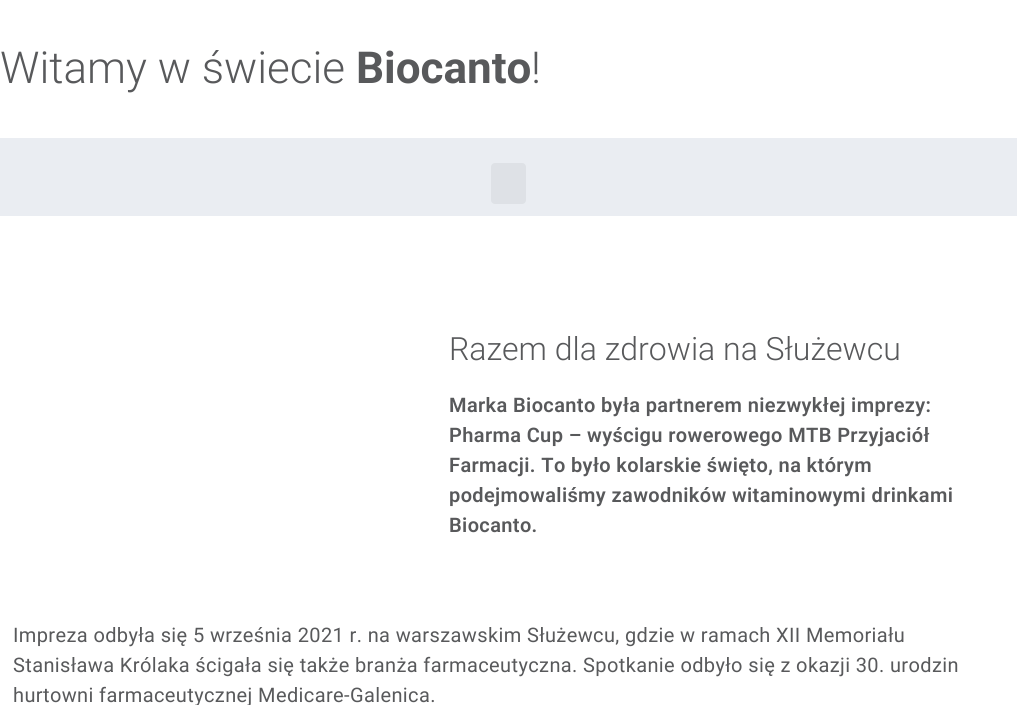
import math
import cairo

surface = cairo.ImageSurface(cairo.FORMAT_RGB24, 1017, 705)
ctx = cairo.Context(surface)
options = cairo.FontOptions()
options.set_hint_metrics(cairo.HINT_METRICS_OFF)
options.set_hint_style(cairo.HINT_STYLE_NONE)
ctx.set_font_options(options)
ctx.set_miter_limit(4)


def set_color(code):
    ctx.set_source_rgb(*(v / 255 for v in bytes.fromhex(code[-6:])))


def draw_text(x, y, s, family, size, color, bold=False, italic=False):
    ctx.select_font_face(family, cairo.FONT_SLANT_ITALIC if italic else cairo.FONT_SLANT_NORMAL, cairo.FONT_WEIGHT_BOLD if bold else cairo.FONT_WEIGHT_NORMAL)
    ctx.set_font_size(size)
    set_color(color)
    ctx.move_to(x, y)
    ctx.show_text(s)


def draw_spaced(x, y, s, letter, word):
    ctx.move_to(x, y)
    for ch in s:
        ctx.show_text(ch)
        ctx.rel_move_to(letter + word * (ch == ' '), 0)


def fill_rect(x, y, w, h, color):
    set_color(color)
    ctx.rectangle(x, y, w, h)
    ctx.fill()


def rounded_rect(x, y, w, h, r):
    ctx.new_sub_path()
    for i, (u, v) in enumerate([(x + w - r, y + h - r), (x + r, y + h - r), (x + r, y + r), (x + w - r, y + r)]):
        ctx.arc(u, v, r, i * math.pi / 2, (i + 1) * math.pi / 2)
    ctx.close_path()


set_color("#ffffff")
ctx.paint()
draw_text(0, 83, "Witamy w świecie", "Roboto Light", 44, "#58595b")
draw_text(356, 83, "Biocanto", "Roboto", 44, "#58595b", bold=True)
draw_text(531, 83, "!", "Roboto Light", 44, "#58595b")
fill_rect(0, 138, 1017, 78, "#eaedf2")
set_color("#dee1e6")
rounded_rect(491, 163, 35, 41, 4)
ctx.fill()
draw_text(449, 360, "Razem dla zdrowia na Służewcu", "Roboto Light", 32, "#58595b")
ctx.select_font_face("Roboto SemiBold")
ctx.set_font_size(20)
draw_spaced(449, 412, "Marka Biocanto była partnerem niezwykłej imprezy:", 0.38, 0)
draw_spaced(449, 442, "Pharma Cup – wyścigu rowerowego MTB Przyjaciół", 0.38, 0)
draw_spaced(449, 472, "Farmacji. To było kolarskie święto, na którym", 0.38, 0)
draw_spaced(449, 502, "podejmowaliśmy zawodników witaminowymi drinkami", 0.38, 0)
draw_spaced(449, 532, "Biocanto.", 0.38, 0)
ctx.select_font_face("Roboto")
draw_spaced(13, 642, "Impreza odbyła się 5 września 2021 r. na warszawskim Służewcu, gdzie w ramach XII Memoriału", 0.38, 0)
draw_spaced(13, 672, "Stanisława Królaka ścigała się także branża farmaceutyczna. Spotkanie odbyło się z okazji 30. urodzin", 0.38, 0)
draw_spaced(13, 702, "hurtowni farmaceutycznej Medicare-Galenica.", 0.38, 0)
surface.write_to_png("output.png")
